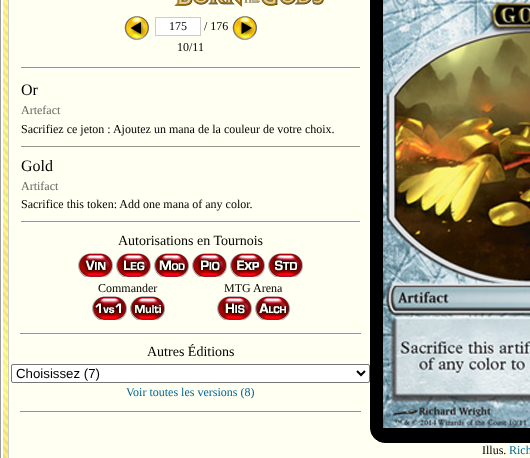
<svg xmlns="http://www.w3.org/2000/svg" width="530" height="458">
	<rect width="100%" height="100%" fill="#FFFFFF" />
	<rect x="0.5" y="-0.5" width="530" height="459" fill="none" stroke="#999999" />
	<image x="3" y="0" width="5" height="458" href="assets/img1.png" />
	<rect x="8.5" y="-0.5" width="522" height="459" fill="#FFFFF2" stroke="#CCCCCC" />
	<image x="174" y="0" width="150" height="7" href="assets/img2.png" />
	<image x="124" y="15" width="25" height="25" href="assets/img3.png" />
	<rect x="155.5" y="17.5" width="45" height="18" fill="#FFFFFF" stroke="#CCCCCC" />
	<g font-family="Liberation Serif" font-size="12" fill="#000000">
		<text x="169" y="30">175</text>
		<text x="204" y="30">/ 176</text>
	</g>
	<image x="232" y="15" width="25" height="25" href="assets/img4.png" />
	<text x="177" y="51" font-family="Liberation Serif" font-size="12" fill="#000000">10/11</text>
	<image x="21" y="67" width="339" height="2" href="assets/img5.png" />
	<text x="21" y="95" font-family="Liberation Serif" font-size="16" fill="#000000">Or</text>
	<text x="21" y="114" font-family="Liberation Serif" font-size="12" fill="#666666">Artefact</text>
	<text x="21" y="133" font-family="Liberation Serif" font-size="12" fill="#000000">Sacrifiez ce jeton : Ajoutez un mana de la couleur de votre choix.</text>
	<image x="21" y="146" width="339" height="2" href="assets/img5.png" />
	<text x="21" y="171" font-family="Liberation Serif" font-size="16" fill="#000000">Gold</text>
	<text x="21" y="190" font-family="Liberation Serif" font-size="12" fill="#666666">Artifact</text>
	<text x="21" y="208" font-family="Liberation Serif" font-size="12" fill="#000000">Sacrifice this token: Add one mana of any color.</text>
	<image x="21" y="221" width="339" height="2" href="assets/img5.png" />
	<text x="118" y="245" font-family="Liberation Serif" font-size="14" fill="#000000">Autorisations en Tournois</text>
	<image x="78" y="253" width="35" height="24" href="assets/img6.png" />
	<image x="116" y="253" width="35" height="24" href="assets/img7.png" />
	<image x="154" y="253" width="35" height="24" href="assets/img8.png" />
	<image x="192" y="253" width="35" height="24" href="assets/img9.png" />
	<image x="230" y="253" width="35" height="24" href="assets/img10.png" />
	<image x="268" y="253" width="35" height="24" href="assets/img11.png" />
	<text x="98" y="292" font-family="Liberation Serif" font-size="12" fill="#000000">Commander</text>
	<image x="92" y="296" width="35" height="24" href="assets/img12.png" />
	<image x="130" y="296" width="35" height="24" href="assets/img13.png" />
	<text x="224" y="292" font-family="Liberation Serif" font-size="12" fill="#000000">MTG Arena</text>
	<image x="217" y="296" width="35" height="24" href="assets/img14.png" />
	<image x="255" y="296" width="35" height="24" href="assets/img15.png" />
	<image x="20" y="333" width="341" height="2" href="assets/img16.png" />
	<text x="147" y="356" font-family="Liberation Serif" font-size="14" fill="#000000">Autres Éditions</text>
	<rect x="11.5" y="364.5" width="358" height="18" rx="1.5" fill="#FFFFFF" stroke="#767676" />
	<path d="M357 371L361 375L365 371" fill="none" stroke="#000000" stroke-width="2" />
	<text x="16" y="378" font-family="Liberation Sans" font-size="13.25" fill="#000000">Choisissez (7)</text>
	<text x="126" y="396" font-family="Liberation Serif" font-size="12" fill="#006699">Voir toutes les versions (8)</text>
	<image x="20" y="411" width="341" height="2" href="assets/img16.png" />
	<rect x="370.5" y="-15.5" width="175" height="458" rx="14.5" fill="#000000" stroke="#000000" />
	<image x="377" y="0" width="153" height="429" href="assets/img17.png" />
	<text x="482" y="454" font-family="Liberation Serif" font-size="12" fill="#000000">Illus.</text>
	<text x="509" y="454" font-family="Liberation Serif" font-size="12" fill="#006699">Rich</text>
</svg>
